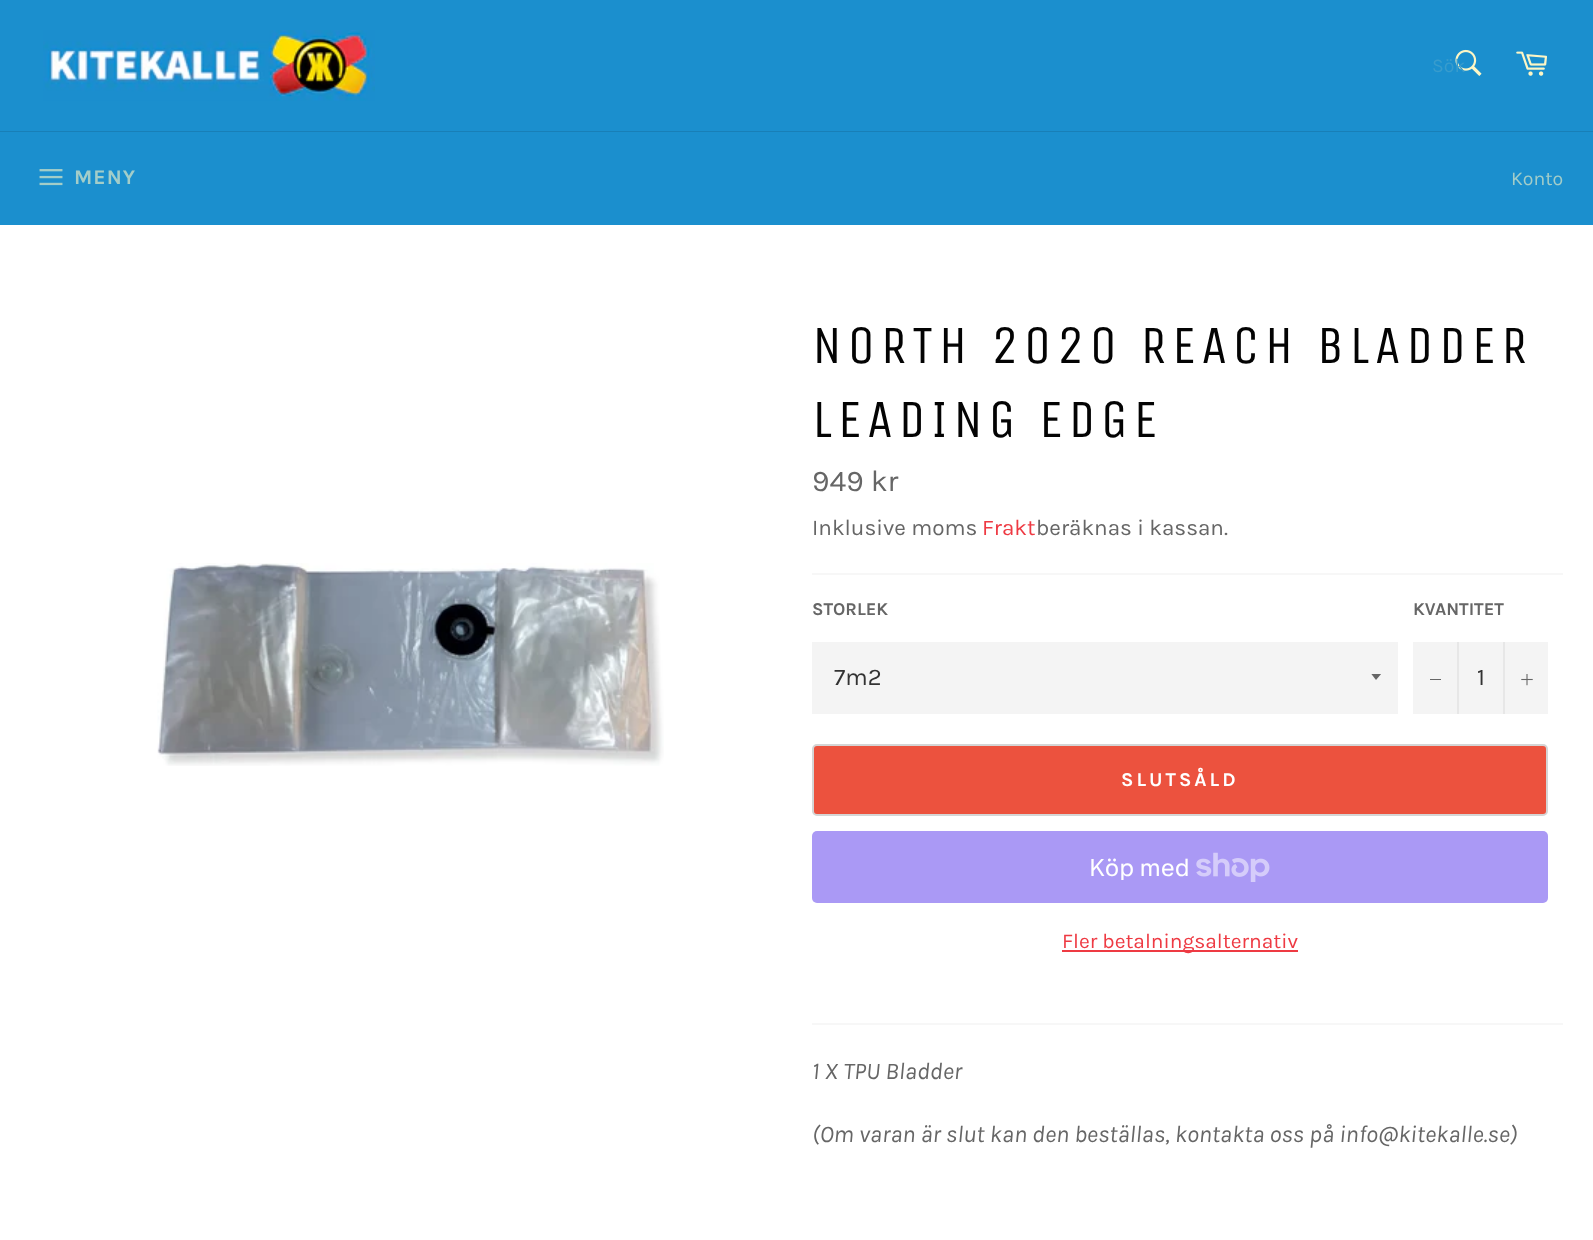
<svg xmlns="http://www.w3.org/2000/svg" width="1593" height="1240">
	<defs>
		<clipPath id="clip1"><rect x="1371" y="674" width="12" height="7" /></clipPath>
	</defs>
	<rect width="100%" height="100%" fill="#1B8FCE" />
	<image x="43" y="30" width="332" height="71" href="assets/img1.png" />
	<image x="1455" y="49" width="27" height="27" href="assets/img2.png" />
	<text x="1432" y="72" font-family="Karla" font-size="19.5" fill="#389CCD">Sök</text>
	<image x="1516" y="51" width="31" height="25" href="assets/img3.png" />
	<rect x="0" y="131" width="1593" height="1" fill="#187FB7" />
	<image x="39" y="169" width="24" height="17" href="assets/img4.png" />
	<text x="74" y="184" font-family="Karla" font-size="21" font-weight="700" letter-spacing="1" fill="#A3CDC9">MENY</text>
	<text x="1511" y="185" font-family="Karla" font-size="19.5" fill="#A3CDC9">Konto</text>
	<rect x="0" y="225" width="1593" height="1015" fill="#FFFFFF" />
	<image x="157" y="563" width="507" height="203" href="assets/img5.png" />
	<g font-family="Unica One" font-size="54" letter-spacing="5.4" fill="#030303">
		<text x="812" y="363">NORTH 2020 REACH BLADDER</text>
		<text x="812" y="437">LEADING EDGE</text>
	</g>
	<text x="812" y="491" font-family="Karla" font-size="30" fill="#666666">949 kr</text>
	<text x="812" y="535" font-family="Karla" font-size="22.5" fill="#666666">Inklusive moms</text>
	<text x="982" y="535" font-family="Karla" font-size="22.5" fill="#EE3A43">Frakt</text>
	<text x="1036" y="535" font-family="Karla" font-size="22.5" fill="#666666">beräknas i kassan.</text>
	<rect x="812" y="573" width="751" height="2" fill="#F7F7F7" />
	<text x="812" y="615" font-family="Karla" font-size="18" font-weight="700" fill="#666666">STORLEK</text>
	<rect x="812" y="642" width="586" height="72" fill="#F4F4F4" />
	<g clip-path="url(#clip1)">
		<path d="M1371 673.5L1376 680L1381.5 673.5Z" fill="#666666" />
	</g>
	<text x="834" y="685" font-family="Karla" font-size="24" fill="#333333">7m2</text>
	<text x="1413" y="615" font-family="Karla" font-size="18" font-weight="700" fill="#666666">KVANTITET</text>
	<rect x="1413" y="642" width="135" height="72" fill="#F4F4F4" />
	<rect x="1457" y="642" width="2" height="72" fill="#E7E7E7" />
	<rect x="1430" y="679" width="11" height="1" fill="#666666" />
	<text x="1477" y="685" font-family="Karla" font-size="24" fill="#333333">1</text>
	<rect x="1503" y="642" width="2" height="72" fill="#E7E7E7" />
	<image x="1521" y="674" width="12" height="12" href="assets/img6.png" />
	<rect x="813" y="745" width="734" height="70" rx="4" fill="#EC523E" stroke="#D5D5D5" stroke-width="2" />
	<text x="1121" y="786" font-family="Karla" font-size="19.5" font-weight="700" letter-spacing="3" fill="#FFFFFF">SLUTSÅLD</text>
	<rect x="812" y="831" width="736" height="72" rx="5" fill="#AA99F5" />
	<text x="1089" y="876" font-family="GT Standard" font-size="24" fill="#FFFFFF">Köp med</text>
	<image x="1196" y="852" width="74" height="30" href="assets/img7.png" />
	<rect x="1062" y="950" width="236" height="2" fill="#EE3A43" />
	<text x="1062" y="948" font-family="Karla" font-size="21" fill="#EE3A43">Fler betalningsalternativ</text>
	<rect x="812" y="1023" width="751" height="2" fill="#F7F7F7" />
	<g font-family="Karla" font-size="24" font-style="italic" fill="#666666">
		<text x="812" y="1079">1 X TPU Bladder</text>
		<text x="812" y="1142">(Om varan är slut kan den beställas, kontakta oss på info@kitekalle.se)</text>
	</g>
</svg>
